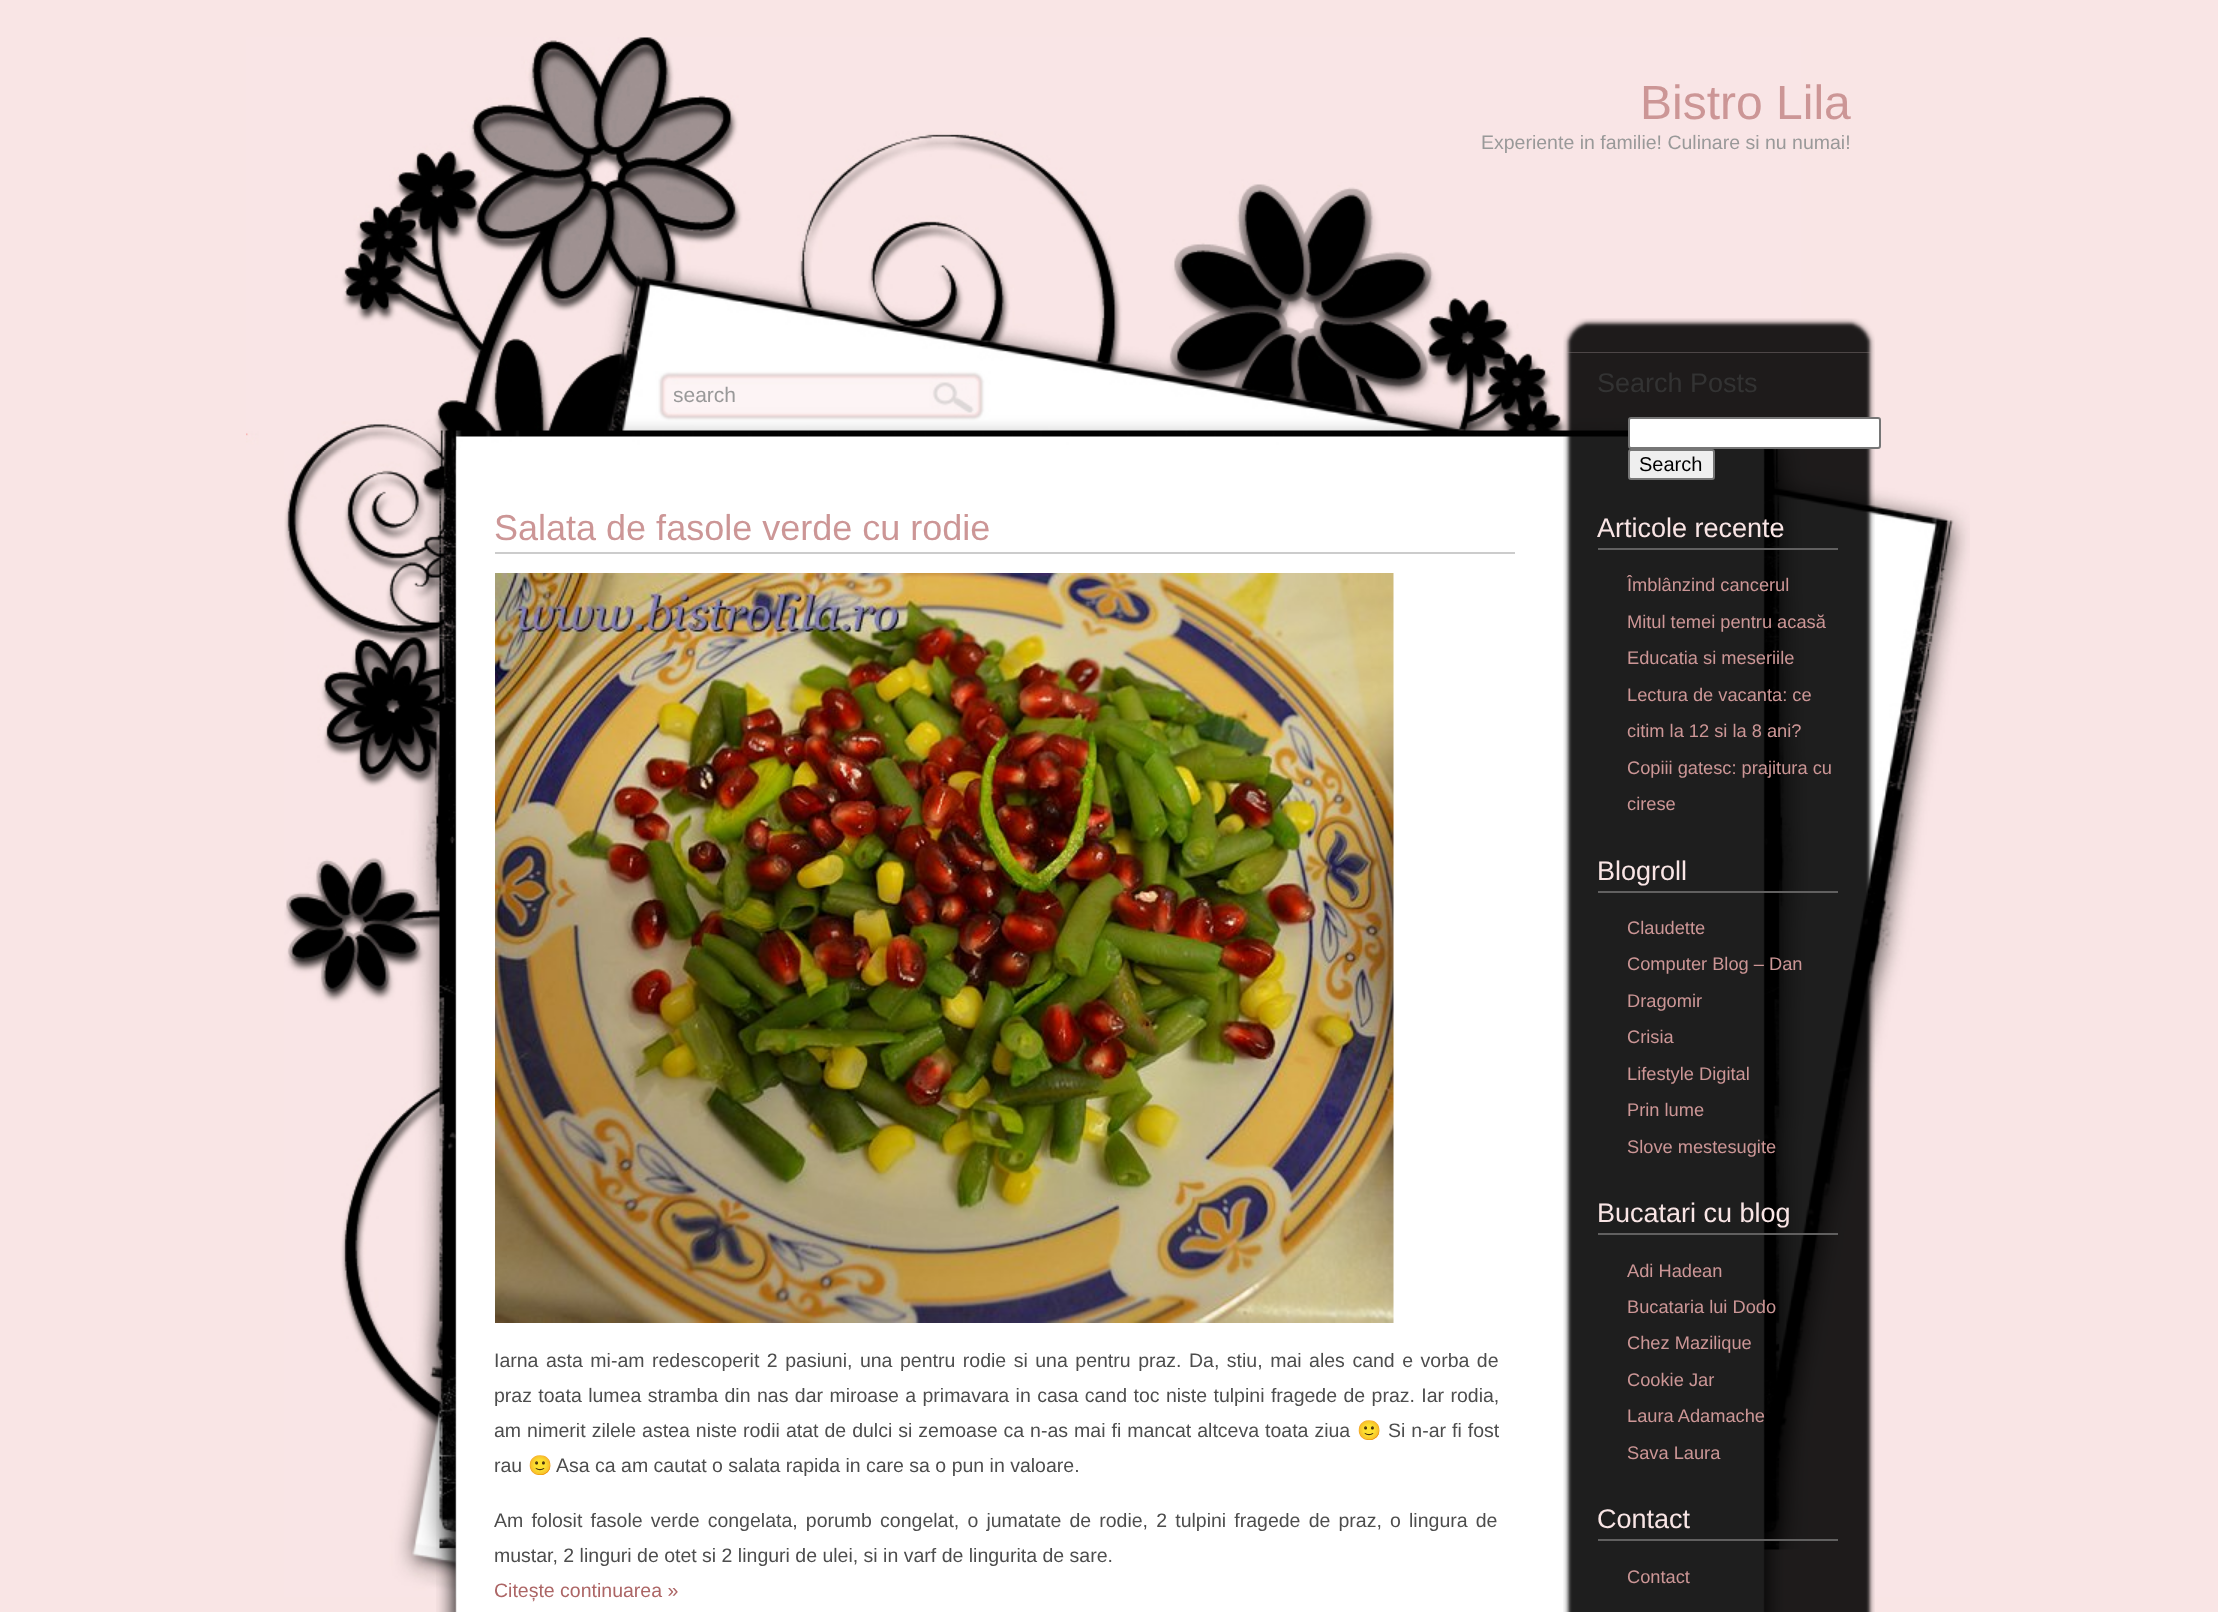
<svg xmlns="http://www.w3.org/2000/svg" width="2218" height="1612">
	<defs>
		<clipPath id="clip1"><rect x="674" y="383" width="225" height="24" /></clipPath>
	</defs>
	<rect width="100%" height="100%" fill="#F9E5E5" />
	<image x="246" y="37" width="1555" height="413" href="assets/img1.png" />
	<text x="1640" y="119" font-family="Liberation Sans" font-size="48" fill="#CC9696">Bistro Lila</text>
	<text x="1481" y="149" font-family="Liberation Sans" font-size="19.5" fill="#999999">Experiente in familie! Culinare si nu numai!</text>
	<g clip-path="url(#clip1)">
		<text x="673" y="402" font-family="Liberation Sans" font-size="21" fill="#999999">search</text>
	</g>
	<image x="284" y="450" width="1686" height="1148" href="assets/img2.png" />
	<image x="436" y="450" width="1348" height="1162" href="assets/img3.png" />
	<rect x="495" y="552" width="1020" height="2" fill="#CCCCCC" />
	<text x="494" y="540" font-family="Liberation Sans" font-size="36" fill="#CC9696">Salata de fasole verde cu rodie</text>
	<image x="495" y="573" width="899" height="750" href="assets/img4.png" />
	<g font-family="Liberation Sans" font-size="19.5" fill="#4D4D4D">
		<text x="494" y="1367" word-spacing="2.1">Iarna asta mi-am redescoperit 2 pasiuni, una pentru rodie si una pentru praz. Da, stiu, mai ales cand e vorba de</text>
		<text x="494" y="1402" word-spacing="1">praz toata lumea stramba din nas dar miroase a primavara in casa cand toc niste tulpini fragede de praz. Iar rodia,</text>
		<text x="494" y="1437" word-spacing="0.6">am nimerit zilele astea niste rodii atat de dulci si zemoase ca n-as mai fi mancat altceva toata ziua</text>
	</g>
	<text x="1357" y="1437" font-family="Noto Color Emoji" font-size="19.5" fill="#4D4D4D">🙂</text>
	<g font-family="Liberation Sans" font-size="19.5" fill="#4D4D4D">
		<text x="1388" y="1437" word-spacing="0.6">Si n-ar fi fost</text>
		<text x="494" y="1472">rau</text>
	</g>
	<text x="528" y="1472" font-family="Noto Color Emoji" font-size="19.5" fill="#4D4D4D">🙂</text>
	<g font-family="Liberation Sans" font-size="19.5" fill="#4D4D4D">
		<text x="556" y="1472">Asa ca am cautat o salata rapida in care sa o pun in valoare.</text>
		<text x="494" y="1527" word-spacing="2.75">Am folosit fasole verde congelata, porumb congelat, o jumatate de rodie, 2 tulpini fragede de praz, o lingura de</text>
		<text x="494" y="1562">mustar, 2 linguri de otet si 2 linguri de ulei, si in varf de lingurita de sare.</text>
	</g>
	<text x="494" y="1597" font-family="Liberation Sans" font-size="19.5" fill="#AC6565">Citește continuarea »</text>
	<image x="1563" y="318" width="312" height="35" href="assets/img5.png" />
	<image x="1563" y="352" width="312" height="1260" href="assets/img6.png" />
	<text x="1597" y="392" font-family="Liberation Sans" font-size="27" fill="#333333">Search Posts</text>
	<rect x="1629" y="418" width="251" height="30" rx="2" fill="#FFFFFF" stroke="#767676" stroke-width="2" />
	<rect x="1629" y="450" width="85" height="29" rx="2" fill="#EFEFEF" stroke="#767676" stroke-width="2" />
	<text x="1639" y="471" font-family="Liberation Sans" font-size="20" fill="#000000">Search</text>
	<rect x="1598" y="548" width="240" height="2" fill="#616060" />
	<text x="1597" y="537" font-family="Liberation Sans" font-size="27" fill="#F9E5E5">Articole recente</text>
	<g font-family="Liberation Sans" font-size="18.25" fill="#CC9696">
		<text x="1627" y="591">Îmblânzind cancerul</text>
		<text x="1627" y="628">Mitul temei pentru acasă</text>
		<text x="1627" y="664">Educatia si meseriile</text>
		<text x="1627" y="701">Lectura de vacanta: ce</text>
		<text x="1627" y="737">citim la 12 si la 8 ani?</text>
		<text x="1627" y="774">Copiii gatesc: prajitura cu</text>
		<text x="1627" y="810">cirese</text>
	</g>
	<rect x="1598" y="891" width="240" height="2" fill="#616060" />
	<text x="1597" y="880" font-family="Liberation Sans" font-size="27" fill="#F9E5E5">Blogroll</text>
	<g font-family="Liberation Sans" font-size="18.25" fill="#CC9696">
		<text x="1627" y="934">Claudette</text>
		<text x="1627" y="970">Computer Blog – Dan</text>
		<text x="1627" y="1007">Dragomir</text>
		<text x="1627" y="1043">Crisia</text>
		<text x="1627" y="1080">Lifestyle Digital</text>
		<text x="1627" y="1116">Prin lume</text>
		<text x="1627" y="1153">Slove mestesugite</text>
	</g>
	<rect x="1598" y="1233" width="240" height="2" fill="#616060" />
	<text x="1597" y="1222" font-family="Liberation Sans" font-size="27" fill="#F9E5E5">Bucatari cu blog</text>
	<g font-family="Liberation Sans" font-size="18.25" fill="#CC9696">
		<text x="1627" y="1277">Adi Hadean</text>
		<text x="1627" y="1313">Bucataria lui Dodo</text>
		<text x="1627" y="1349">Chez Mazilique</text>
		<text x="1627" y="1386">Cookie Jar</text>
		<text x="1627" y="1422">Laura Adamache</text>
		<text x="1627" y="1459">Sava Laura</text>
	</g>
	<rect x="1598" y="1539" width="240" height="2" fill="#616060" />
	<text x="1597" y="1528" font-family="Liberation Sans" font-size="27" fill="#F9E5E5">Contact</text>
	<text x="1627" y="1583" font-family="Liberation Sans" font-size="18.25" fill="#CC9696">Contact</text>
</svg>
